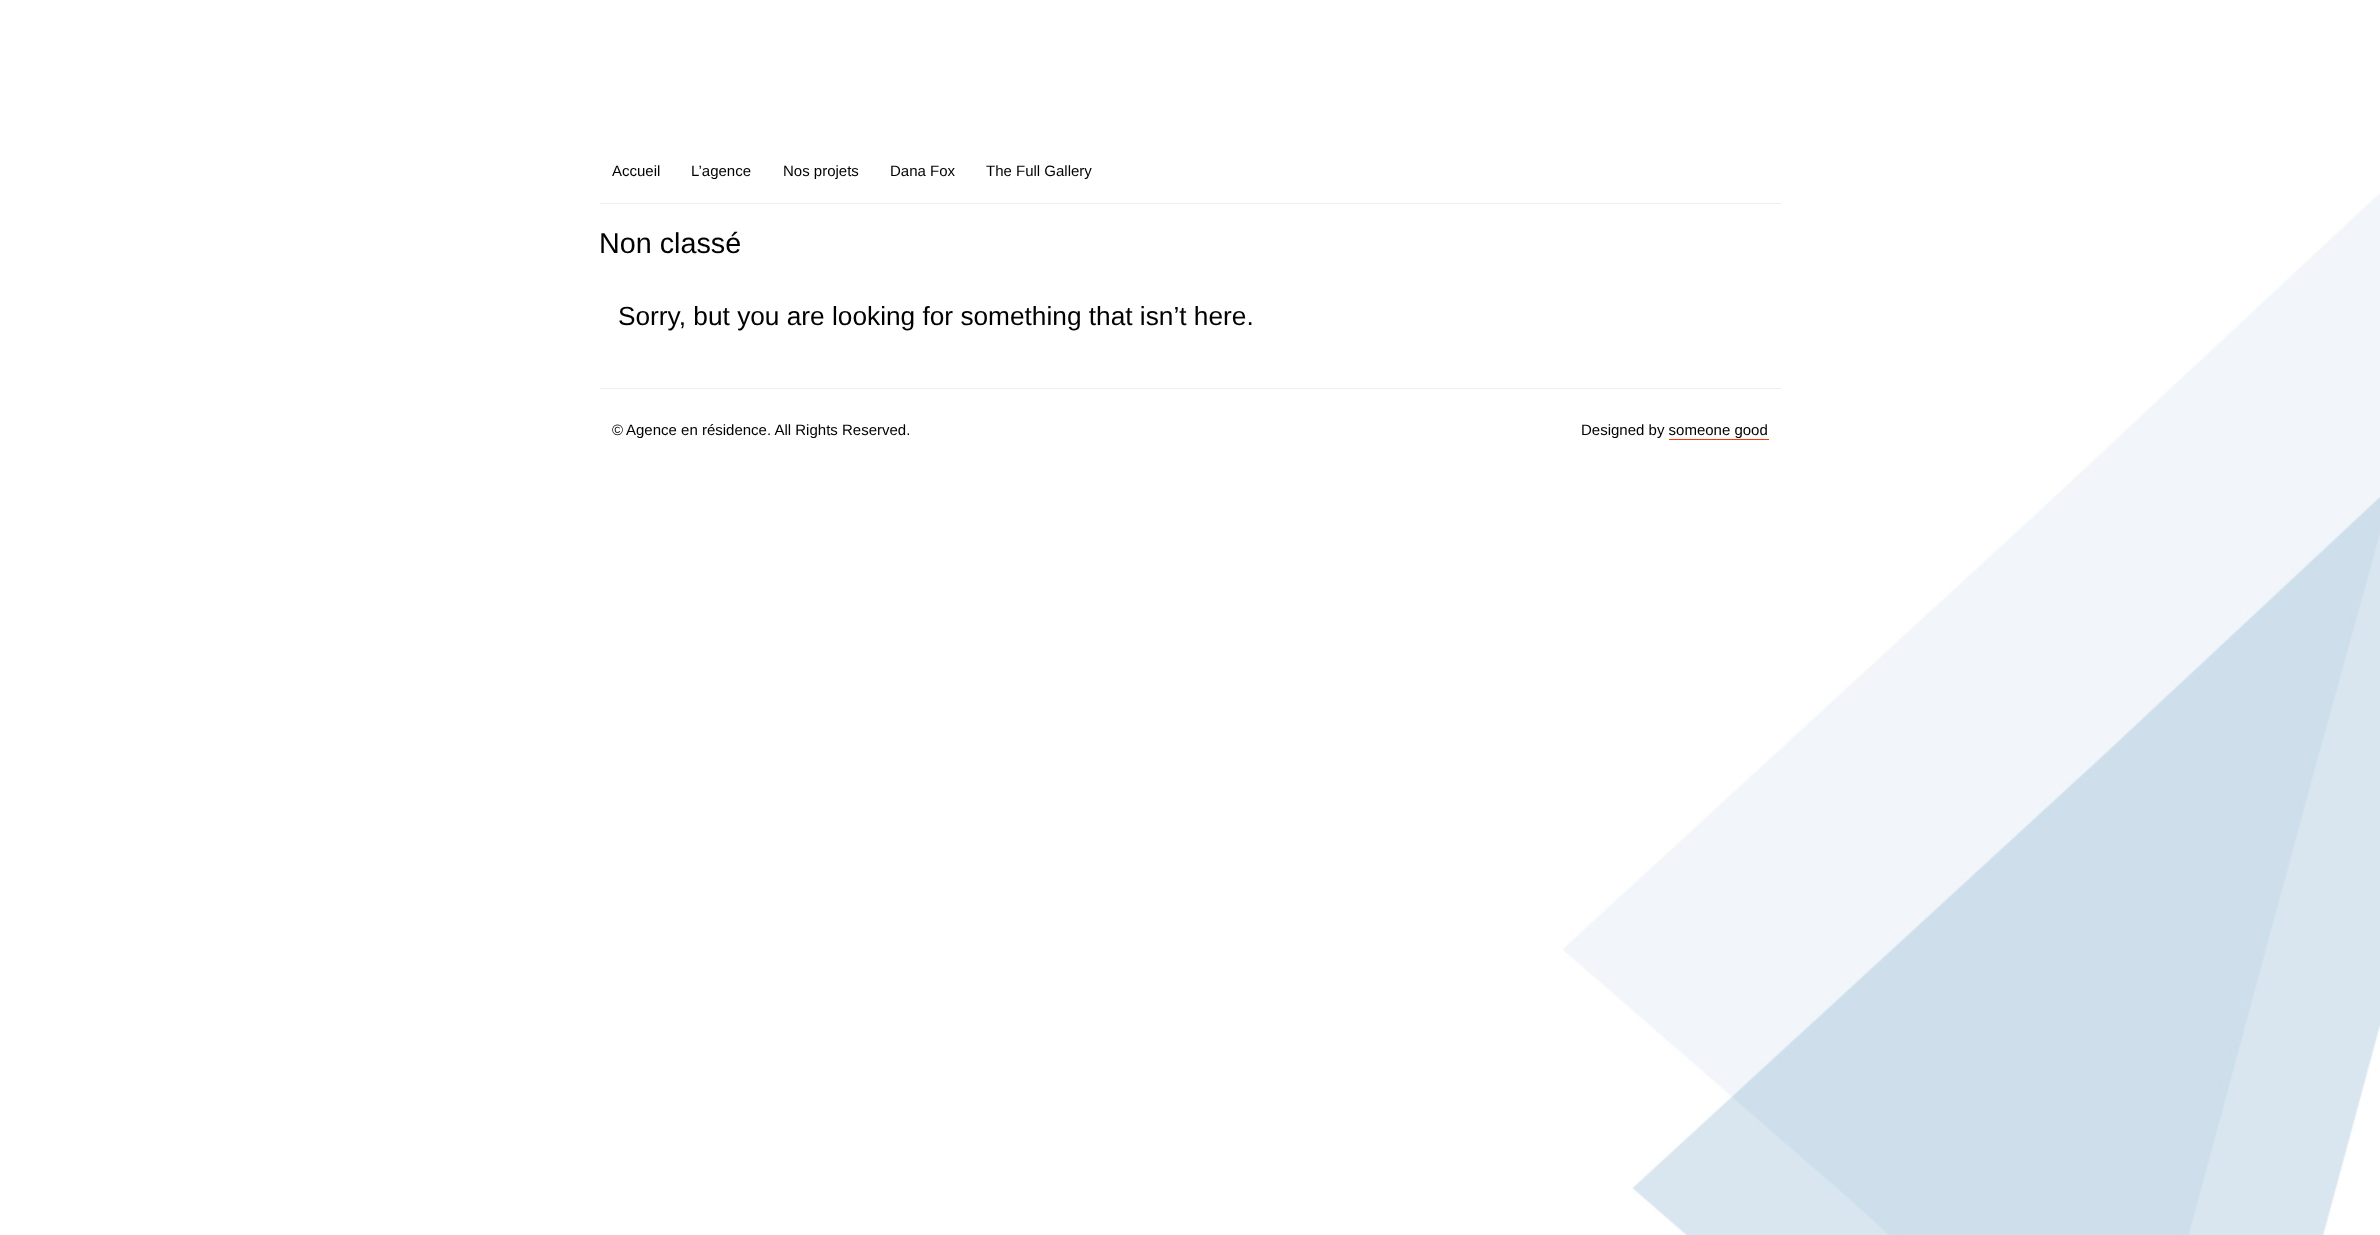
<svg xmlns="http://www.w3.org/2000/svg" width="2380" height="1235">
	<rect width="100%" height="100%" fill="#FFFFFF" />
	<image x="1563" y="193" width="817" height="1042" href="assets/img1.png" />
	<rect x="600" y="203" width="1181" height="1" fill="#EEEEEE" />
	<g font-family="Liberation Sans" font-size="15" fill="#000000">
		<text x="612" y="176">Accueil</text>
		<text x="691" y="176">L’agence</text>
		<text x="783" y="176">Nos projets</text>
		<text x="890" y="176">Dana Fox</text>
		<text x="986" y="176">The Full Gallery</text>
	</g>
	<text x="599" y="253" font-family="Liberation Sans" font-size="28.75" fill="#000000">Non classé</text>
	<text x="618" y="325" font-family="Liberation Sans" font-size="26.25" fill="#000000">Sorry, but you are looking for something that isn’t here.</text>
	<rect x="600" y="388" width="1181" height="1" fill="#EEEEEE" />
	<g font-family="Liberation Sans" font-size="15" fill="#000000">
		<text x="612" y="435">©</text>
		<text x="626" y="435">Agence en résidence. All Rights Reserved.</text>
		<text x="1581" y="435">Designed by someone good</text>
	</g>
	<rect x="1669" y="439" width="100" height="1" fill="#FF3706" />
</svg>
